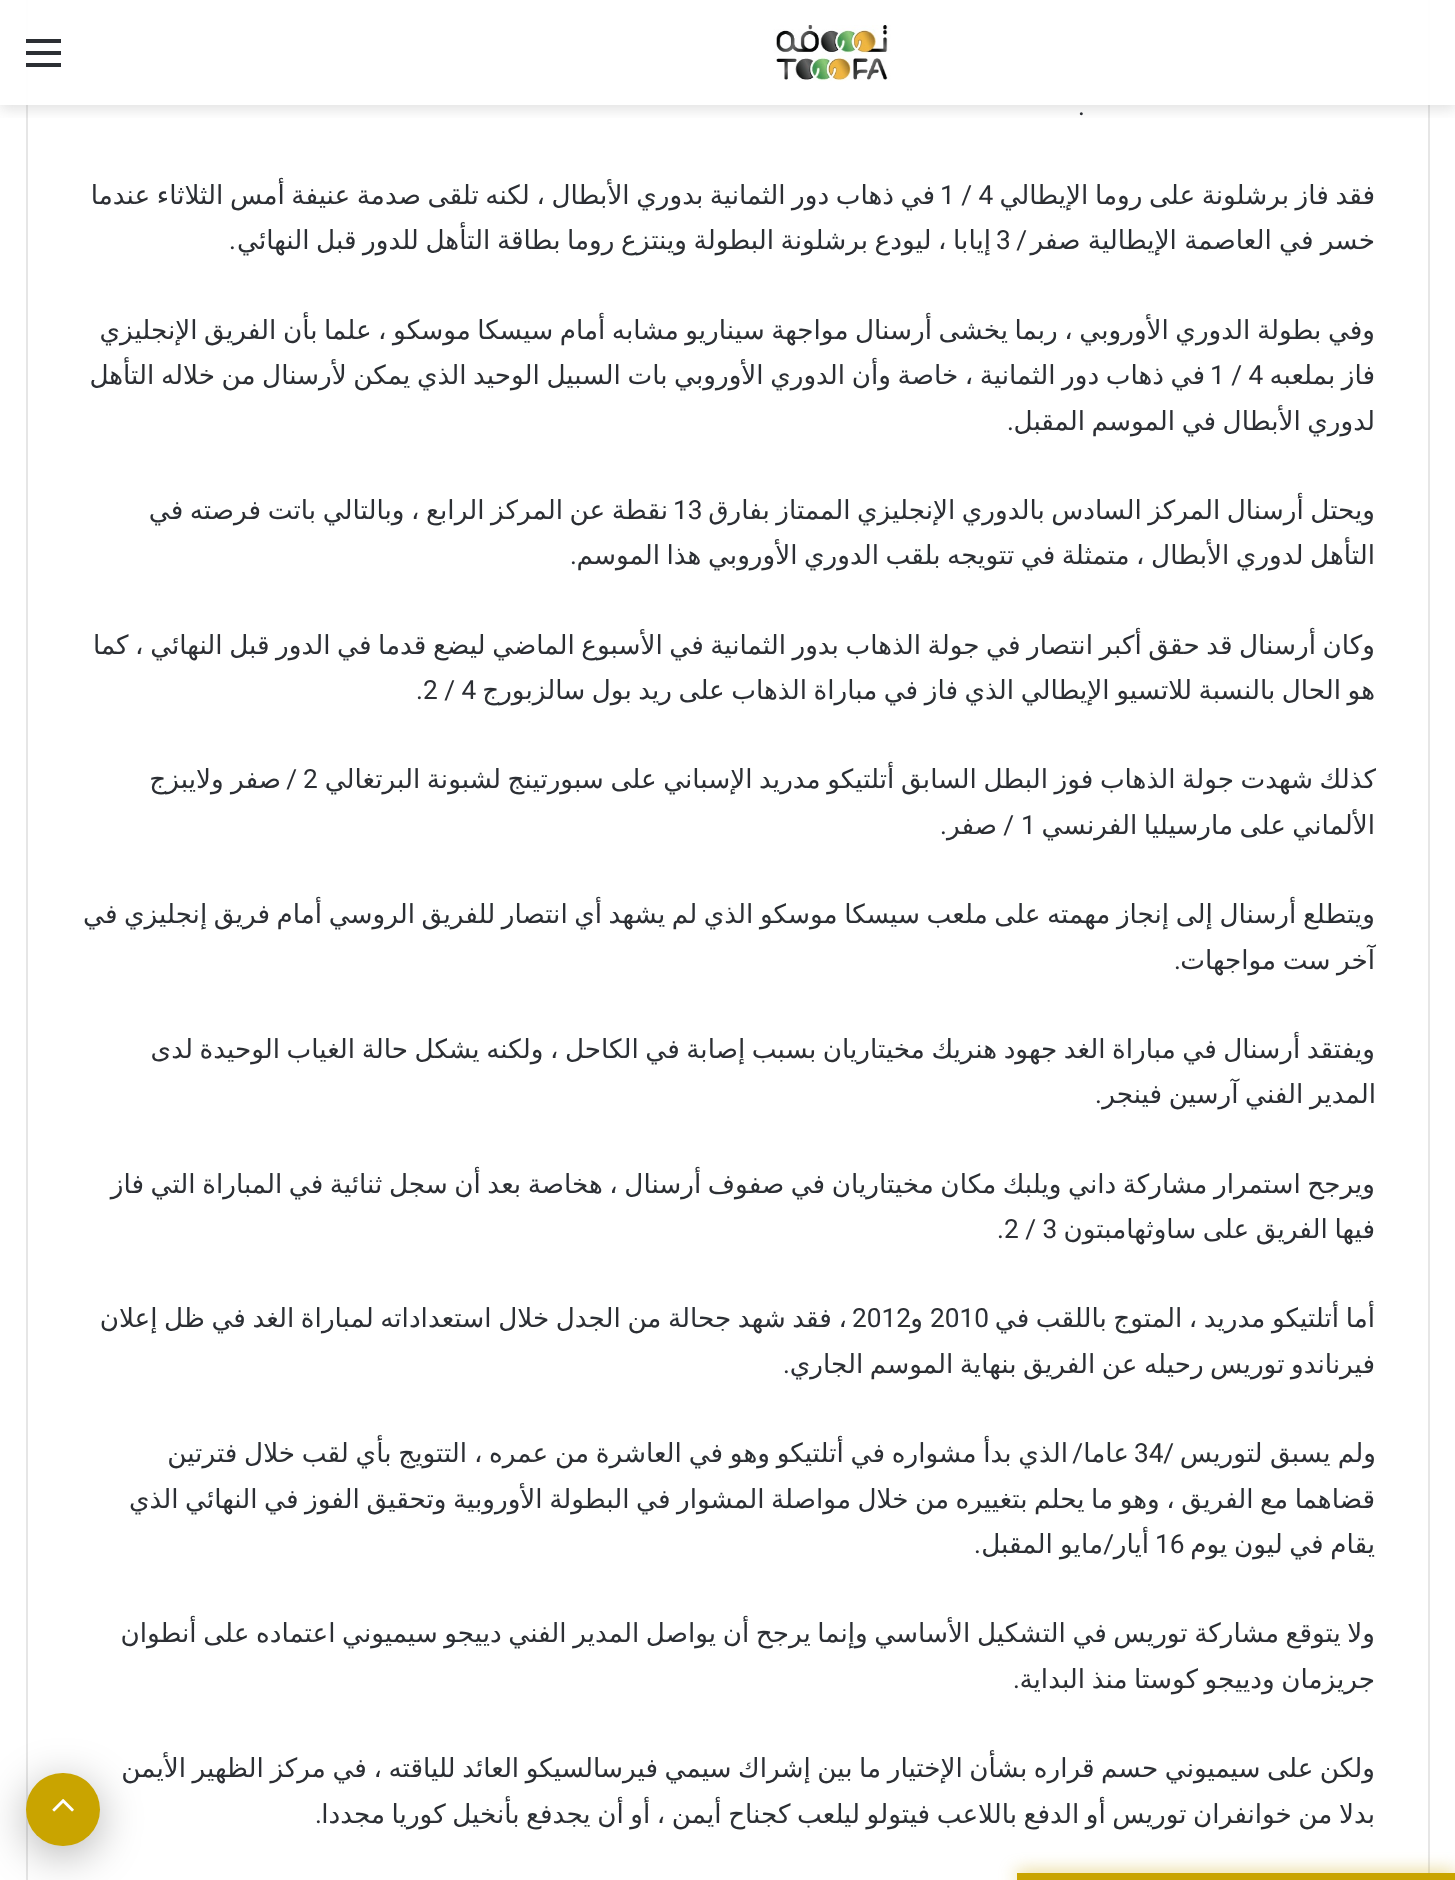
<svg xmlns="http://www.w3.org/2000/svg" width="1455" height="1880">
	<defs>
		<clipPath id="clip1"><rect x="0" y="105" width="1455" height="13" /></clipPath>
	</defs>
	<rect width="100%" height="100%" fill="#FFFFFF" />
	<rect x="27" y="-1" width="1402" height="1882" fill="none" stroke="#E6E6E6" stroke-width="2" />
	<g clip-path="url(#clip1)">
		<rect x="0" y="4" width="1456" height="105" fill="#636363" fill-opacity="0.2" filter="blur(7px)" />
	</g>
	<rect x="26" y="0" width="1404" height="105" fill="#FFFFFF" fill-opacity="0.95" />
	<image x="562" y="25" width="332" height="56" href="assets/img1.png" />
	<rect x="26" y="51" width="35" height="4" fill="#2C2F34" />
	<rect x="26" y="39" width="35" height="4" fill="#2C2F34" />
	<rect x="26" y="63" width="35" height="4" fill="#2C2F34" />
	<text x="1085" y="115" font-family="Roboto" font-size="26.25" direction="rtl" fill="#2C2F34">.</text>
	<g font-family="DejaVu Sans" font-size="26.25" direction="rtl" fill="#2C2F34">
		<text x="1375" y="204" word-spacing="-1.8">فقد فاز برشلونة على روما الإيطالي</text>
		<text x="935" y="204" word-spacing="-1.75">في ذهاب دور الثمانية بدوري الأبطال ، لكنه تلقى صدمة عنيفة أمس الثلاثاء عندما</text>
	</g>
	<text x="940" y="204" font-family="Roboto" font-size="26.25" fill="#2C2F34">1 / 4</text>
	<text x="1375" y="249" word-spacing="-1" font-family="DejaVu Sans" font-size="26.25" direction="rtl" fill="#2C2F34">خسر في العاصمة الإيطالية صفر</text>
	<text x="1027" y="249" font-family="Roboto" font-size="26.25" direction="rtl" fill="#2C2F34">/</text>
	<text x="991" y="249" word-spacing="-1.75" font-family="DejaVu Sans" font-size="26.25" direction="rtl" fill="#2C2F34">إيابا ، ليودع برشلونة البطولة وينتزع روما بطاقة التأهل للدور قبل النهائي</text>
	<text x="996" y="249" font-family="Roboto" font-size="26.25" fill="#2C2F34">3</text>
	<text x="236" y="249" font-family="Roboto" font-size="26.25" direction="rtl" fill="#2C2F34">.</text>
	<g font-family="DejaVu Sans" font-size="26.25" direction="rtl" fill="#2C2F34">
		<text x="1375" y="339" word-spacing="-1.8">وفي بطولة الدوري الأوروبي ، ربما يخشى أرسنال مواجهة سيناريو مشابه أمام سيسكا موسكو ، علما بأن الفريق الإنجليزي</text>
		<text x="1375" y="384" word-spacing="-1.8">فاز بملعبه</text>
		<text x="1205" y="384" word-spacing="-1.75">في ذهاب دور الثمانية ، خاصة وأن الدوري الأوروبي بات السبيل الوحيد الذي يمكن لأرسنال من خلاله التأهل</text>
	</g>
	<text x="1210" y="384" font-family="Roboto" font-size="26.25" fill="#2C2F34">1 / 4</text>
	<text x="1375" y="430" word-spacing="-1.8" font-family="DejaVu Sans" font-size="26.25" direction="rtl" fill="#2C2F34">لدوري الأبطال في الموسم المقبل</text>
	<text x="1014" y="430" font-family="Roboto" font-size="26.25" direction="rtl" fill="#2C2F34">.</text>
	<g font-family="DejaVu Sans" font-size="26.25" direction="rtl" fill="#2C2F34">
		<text x="1375" y="519" word-spacing="-1.8">ويحتل أرسنال المركز السادس بالدوري الإنجليزي الممتاز بفارق</text>
		<text x="668" y="519" word-spacing="-1.75">نقطة عن المركز الرابع ، وبالتالي باتت فرصته في</text>
	</g>
	<text x="673" y="519" font-family="Roboto" font-size="26.25" fill="#2C2F34">13</text>
	<text x="1375" y="564" word-spacing="-1.8" font-family="DejaVu Sans" font-size="26.25" direction="rtl" fill="#2C2F34">التأهل لدوري الأبطال ، متمثلة في تتويجه بلقب الدوري الأوروبي هذا الموسم</text>
	<text x="577" y="564" font-family="Roboto" font-size="26.25" direction="rtl" fill="#2C2F34">.</text>
	<g font-family="DejaVu Sans" font-size="26.25" direction="rtl" fill="#2C2F34">
		<text x="1375" y="654" word-spacing="-1.8">وكان أرسنال قد حقق أكبر انتصار في جولة الذهاب بدور الثمانية في الأسبوع الماضي ليضع قدما في الدور قبل النهائي ، كما</text>
		<text x="1375" y="699" word-spacing="-1.8">هو الحال بالنسبة للاتسيو الإيطالي الذي فاز في مباراة الذهاب على ريد بول سالزبورج</text>
	</g>
	<text x="416" y="699" font-family="Roboto" font-size="26.25" fill="#2C2F34">.2 / 4</text>
	<text x="1376" y="788" word-spacing="-1.8" font-family="DejaVu Sans" font-size="26.25" direction="rtl" fill="#2C2F34">كذلك شهدت جولة الذهاب فوز البطل السابق أتلتيكو مدريد الإسباني على سبورتينج لشبونة البرتغالي</text>
	<text x="303" y="788" font-family="Roboto" font-size="26.25" fill="#2C2F34">2</text>
	<text x="297" y="788" font-family="Roboto" font-size="26.25" direction="rtl" fill="#2C2F34">/</text>
	<g font-family="DejaVu Sans" font-size="26.25" direction="rtl" fill="#2C2F34">
		<text x="281" y="788" word-spacing="-1">صفر ولايبزج</text>
		<text x="1375" y="834" word-spacing="-1.8">الألماني على مارسيليا الفرنسي</text>
	</g>
	<text x="1021" y="834" font-family="Roboto" font-size="26.25" fill="#2C2F34">1</text>
	<text x="1014" y="834" font-family="Roboto" font-size="26.25" direction="rtl" fill="#2C2F34">/</text>
	<text x="997" y="834" font-family="DejaVu Sans" font-size="26.25" direction="rtl" fill="#2C2F34">صفر</text>
	<text x="947" y="834" font-family="Roboto" font-size="26.25" direction="rtl" fill="#2C2F34">.</text>
	<g font-family="DejaVu Sans" font-size="26.25" direction="rtl" fill="#2C2F34">
		<text x="1375" y="923" word-spacing="-1.8">ويتطلع أرسنال إلى إنجاز مهمته على ملعب سيسكا موسكو الذي لم يشهد أي انتصار للفريق الروسي أمام فريق إنجليزي في</text>
		<text x="1375" y="969" word-spacing="-1.8">آخر ست مواجهات</text>
	</g>
	<text x="1181" y="969" font-family="Roboto" font-size="26.25" direction="rtl" fill="#2C2F34">.</text>
	<g font-family="DejaVu Sans" font-size="26.25" direction="rtl" fill="#2C2F34">
		<text x="1375" y="1058" word-spacing="-1.8">ويفتقد أرسنال في مباراة الغد جهود هنريك مخيتاريان بسبب إصابة في الكاحل ، ولكنه يشكل حالة الغياب الوحيدة لدى</text>
		<text x="1376" y="1103" word-spacing="-1.8">المدير الفني آرسين فينجر</text>
	</g>
	<text x="1102" y="1103" font-family="Roboto" font-size="26.25" direction="rtl" fill="#2C2F34">.</text>
	<g font-family="DejaVu Sans" font-size="26.25" direction="rtl" fill="#2C2F34">
		<text x="1375" y="1193" word-spacing="-1.8">ويرجح استمرار مشاركة داني ويلبك مكان مخيتاريان في صفوف أرسنال ، هخاصة بعد أن سجل ثنائية في المباراة التي فاز</text>
		<text x="1375" y="1238" word-spacing="-1.8">فيها الفريق على ساوثهامبتون</text>
	</g>
	<text x="997" y="1238" font-family="Roboto" font-size="26.25" fill="#2C2F34">.2 / 3</text>
	<text x="1375" y="1327" word-spacing="-1.8" font-family="DejaVu Sans" font-size="26.25" direction="rtl" fill="#2C2F34">أما أتلتيكو مدريد ، المتوج باللقب في</text>
	<g font-family="Roboto" font-size="26.25" fill="#2C2F34">
		<text x="930" y="1327">2010</text>
		<text x="852" y="1327">2012</text>
	</g>
	<g font-family="DejaVu Sans" font-size="26.25" direction="rtl" fill="#2C2F34">
		<text x="923" y="1327">و</text>
		<text x="847" y="1327" word-spacing="-1.75">، فقد شهد جحالة من الجدل خلال استعداداته لمباراة الغد في ظل إعلان</text>
		<text x="1375" y="1373" word-spacing="-1.8">فيرناندو توريس رحيله عن الفريق بنهاية الموسم الجاري</text>
	</g>
	<text x="790" y="1373" font-family="Roboto" font-size="26.25" direction="rtl" fill="#2C2F34">.</text>
	<g font-family="DejaVu Sans" font-size="26.25" direction="rtl" fill="#2C2F34">
		<text x="1376" y="1462" word-spacing="-1">ولم يسبق لتوريس</text>
		<text x="1129" y="1462">عاما</text>
		<text x="1068" y="1462" word-spacing="-1.6">الذي بدأ مشواره في أتلتيكو وهو في العاشرة من عمره ، التتويج بأي لقب خلال فترتين</text>
	</g>
	<text x="1174" y="1462" font-family="Roboto" font-size="26.25" direction="rtl" fill="#2C2F34">/</text>
	<text x="1134" y="1462" font-family="Roboto" font-size="26.25" fill="#2C2F34">34</text>
	<text x="1083" y="1462" font-family="Roboto" font-size="26.25" direction="rtl" fill="#2C2F34">/</text>
	<g font-family="DejaVu Sans" font-size="26.25" direction="rtl" fill="#2C2F34">
		<text x="1375" y="1508" word-spacing="-1.8">قضاهما مع الفريق ، وهو ما يحلم بتغييره من خلال مواصلة المشوار في البطولة الأوروبية وتحقيق الفوز في النهائي الذي</text>
		<text x="1375" y="1553" word-spacing="-1.8">يقام في ليون يوم</text>
	</g>
	<text x="1155" y="1553" font-family="Roboto" font-size="26.25" fill="#2C2F34">16</text>
	<text x="1114" y="1553" font-family="Roboto" font-size="26.25" direction="rtl" fill="#2C2F34">/</text>
	<g font-family="DejaVu Sans" font-size="26.25" direction="rtl" fill="#2C2F34">
		<text x="1149" y="1553">أيار</text>
		<text x="1103" y="1553" word-spacing="-1">مايو المقبل</text>
	</g>
	<text x="981" y="1553" font-family="Roboto" font-size="26.25" direction="rtl" fill="#2C2F34">.</text>
	<g font-family="DejaVu Sans" font-size="26.25" direction="rtl" fill="#2C2F34">
		<text x="1375" y="1642" word-spacing="-1.8">ولا يتوقع مشاركة توريس في التشكيل الأساسي وإنما يرجح أن يواصل المدير الفني دييجو سيميوني اعتماده على أنطوان</text>
		<text x="1375" y="1688" word-spacing="-1.8">جريزمان ودييجو كوستا منذ البداية</text>
	</g>
	<text x="1020" y="1688" font-family="Roboto" font-size="26.25" direction="rtl" fill="#2C2F34">.</text>
	<g font-family="DejaVu Sans" font-size="26.25" direction="rtl" fill="#2C2F34">
		<text x="1375" y="1777" word-spacing="-1.8">ولكن على سيميوني حسم قراره بشأن الإختيار ما بين إشراك سيمي فيرسالسيكو العائد للياقته ، في مركز الظهير الأيمن</text>
		<text x="1375" y="1823" word-spacing="-1.8">بدلا من خوانفران توريس أو الدفع باللاعب فيتولو ليلعب كجناح أيمن ، أو أن يجدفع بأنخيل كوريا مجددا</text>
	</g>
	<text x="322" y="1823" font-family="Roboto" font-size="26.25" direction="rtl" fill="#2C2F34">.</text>
	<rect x="26" y="1782" width="74" height="73" rx="36.5" fill="#000000" fill-opacity="0.3" filter="blur(22px)" />
	<rect x="26" y="1773" width="74" height="73" rx="36.5" fill="#C9A400" />
	<image x="52" y="1799" width="22" height="13" href="assets/img2.png" />
	<rect x="1017" y="1873" width="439" height="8" fill="#C9A400" fill-opacity="0.7" filter="blur(9px)" />
	<rect x="1017" y="1873" width="438" height="7" fill="#C9A400" />
</svg>
